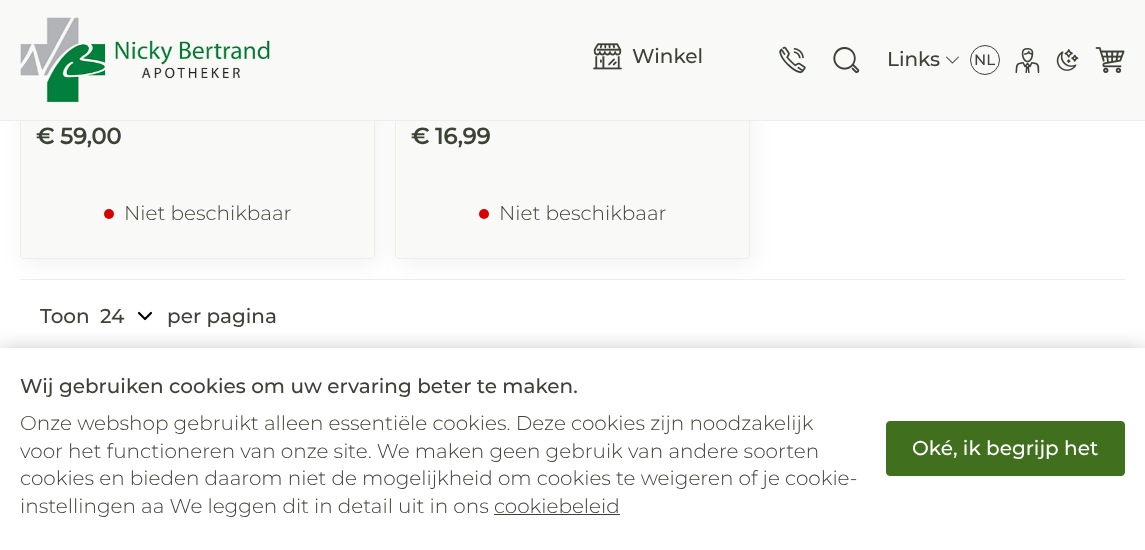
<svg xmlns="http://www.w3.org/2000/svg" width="1145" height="550">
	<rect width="100%" height="100%" fill="#FFFFFF" />
	<rect x="20" y="279" width="1105" height="1" fill="#ECEEE9" />
	<rect x="23" y="-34" width="355" height="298" rx="4" fill="#000000" fill-opacity="0.05" filter="blur(10px)" />
	<rect x="20.5" y="-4.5" width="354" height="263" rx="3.5" fill="none" stroke="#ECEEE9" />
	<path d="M21 39H374V255.5C374 257 373 258 371.5 258H23.5C22 258 21 257 21 255.5Z" fill="#F9FAF8" />
	<rect x="398" y="-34" width="355" height="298" rx="4" fill="#000000" fill-opacity="0.05" filter="blur(10px)" />
	<rect x="395.5" y="-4.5" width="354" height="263" rx="3.5" fill="none" stroke="#ECEEE9" />
	<path d="M396 39H749V255.5C749 257 748 258 746.5 258H398.5C397 258 396 257 396 255.5Z" fill="#F9FAF8" />
	<rect x="0" y="120" width="1145" height="1" fill="#ECEEE9" />
	<rect x="0" y="0" width="1145" height="120" fill="#F9FAF8" />
	<image x="20" y="17" width="250" height="86" href="assets/img1.png" />
	<image x="593" y="43" width="29" height="27" href="assets/img2.png" />
	<text x="632" y="63" font-family="Montserrat" font-size="20" font-weight="500" fill="#3D4136">Winkel</text>
	<image x="779" y="46" width="27" height="28" href="assets/img3.png" />
	<image x="833" y="46" width="27" height="28" href="assets/img4.png" />
	<text x="887" y="66" font-family="Montserrat" font-size="20" font-weight="500" fill="#3D4136">Links</text>
	<image x="946" y="56" width="13" height="8" href="assets/img5.png" />
	<circle cx="985" cy="60" r="14.5" fill="none" stroke="#3D4136" />
	<text x="974" y="65" font-family="Montserrat" font-size="15" font-weight="500" fill="#3D4136">NL</text>
	<image x="1015" y="48" width="25" height="25" href="assets/img6.png" />
	<image x="1056" y="49" width="23" height="22" href="assets/img7.png" />
	<image x="1095" y="47" width="30" height="26" href="assets/img8.png" />
	<text x="36" y="144" font-family="Montserrat" font-size="22.5" font-weight="700" fill="#3D4136">€ 59,00</text>
	<circle cx="109" cy="214" r="5" fill="#D90000" />
	<text x="124" y="220" font-family="Montserrat" font-size="20" font-weight="300" fill="#3D4136">Niet beschikbaar</text>
	<text x="411" y="144" font-family="Montserrat" font-size="22.5" font-weight="700" fill="#3D4136">€ 16,99</text>
	<circle cx="484" cy="214" r="5" fill="#D90000" />
	<text x="499" y="220" font-family="Montserrat" font-size="20" font-weight="300" fill="#3D4136">Niet beschikbaar</text>
	<text x="40" y="323" font-family="Montserrat" font-size="20" font-weight="500" fill="#3D4136">Toon</text>
	<path d="M139 313L145 319L151 313" fill="none" stroke="#000000" stroke-width="2.2" stroke-linecap="round" stroke-linejoin="round" />
	<g font-family="Montserrat" font-size="20" font-weight="500" fill="#3D4136">
		<text x="100" y="323">24</text>
		<text x="167" y="323">per pagina</text>
	</g>
	<rect x="0" y="348" width="1145" height="202" fill="#000000" fill-opacity="0.2" filter="blur(9.5px)" />
	<rect x="0" y="348" width="1145" height="202" fill="#FFFFFF" />
	<text x="20" y="393" font-family="Montserrat" font-size="20" font-weight="500" fill="#3D4136">Wij gebruiken cookies om uw ervaring beter te maken.</text>
	<g font-family="Montserrat" font-size="20" font-weight="300" fill="#3D4136">
		<text x="20" y="430">Onze webshop gebruikt alleen essentiële cookies. Deze cookies zijn noodzakelijk</text>
		<text x="20" y="458">voor het functioneren van onze site. We maken geen gebruik van andere soorten</text>
		<text x="20" y="485">cookies en bieden daarom niet de mogelijkheid om cookies te weigeren of je cookie-</text>
		<text x="20" y="513">instellingen aa We leggen dit in detail uit in ons cookiebeleid</text>
	</g>
	<rect x="494" y="514" width="126" height="1" fill="#3D4136" />
	<rect x="886.5" y="421.5" width="238" height="54" rx="3.5" fill="#406F1D" stroke="#406F1D" />
	<text x="912" y="455" font-family="Montserrat" font-size="20" font-weight="500" fill="#FFFFFF">Oké, ik begrijp het</text>
</svg>
